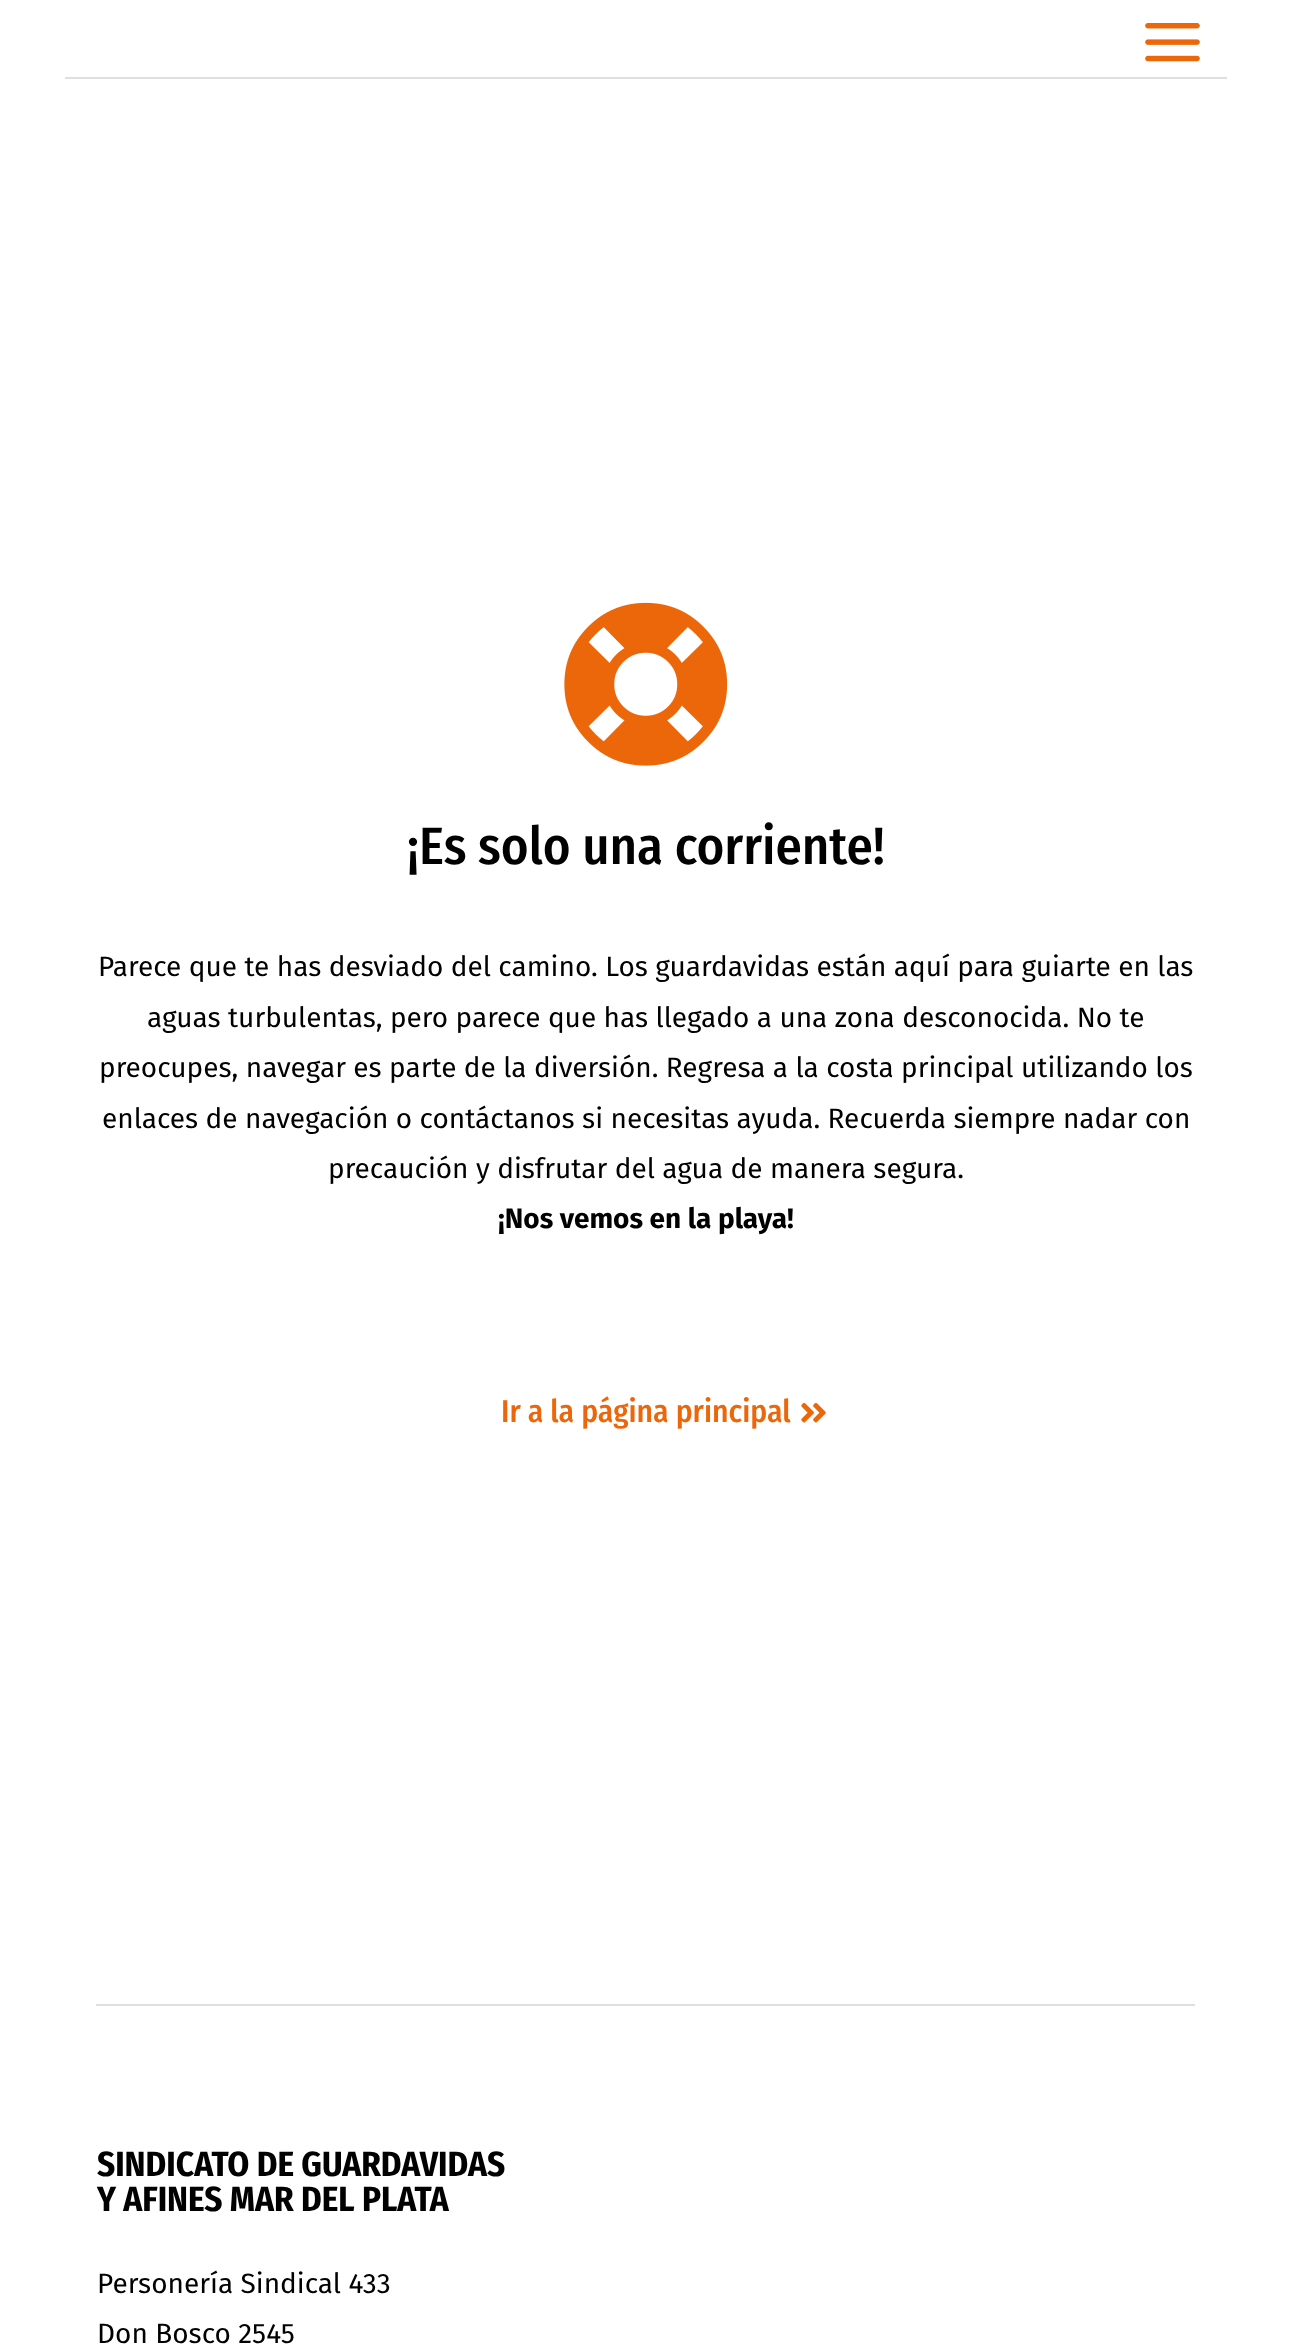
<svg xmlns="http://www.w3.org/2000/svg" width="1291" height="2352">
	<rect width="100%" height="100%" fill="#FFFFFF" />
	<rect x="65" y="77" width="1162" height="2" fill="#DFDFDF" />
	<image x="1145" y="23" width="55" height="39" href="assets/img1.png" />
	<image x="564" y="602" width="164" height="164" href="assets/img2.png" />
	<text x="407" y="864" font-family="Fira Sans Condensed" font-size="52.5" font-weight="500" fill="#000000">¡Es solo una corriente!</text>
	<g font-family="Fira Sans" font-size="28" fill="#000000">
		<text x="98" y="976">Parece que te has desviado del camino. Los guardavidas están aquí para guiarte en las</text>
		<text x="147" y="1027">aguas turbulentas, pero parece que has llegado a una zona desconocida. No te</text>
		<text x="99" y="1077">preocupes, navegar es parte de la diversión. Regresa a la costa principal utilizando los</text>
		<text x="102" y="1128">enlaces de navegación o contáctanos si necesitas ayuda. Recuerda siempre nadar con</text>
		<text x="328" y="1178">precaución y disfrutar del agua de manera segura.</text>
	</g>
	<text x="498" y="1228" font-family="Fira Sans" font-size="28" font-weight="700" fill="#000000">¡Nos vemos en la playa!</text>
	<text x="501" y="1422" font-family="Fira Sans Condensed" font-size="31.5" font-weight="500" fill="#EC660A">Ir a la página principal</text>
	<image x="801" y="1402" width="25" height="21" href="assets/img3.png" />
	<rect x="96" y="2004" width="1099" height="2" fill="#DFDFDF" />
	<g font-family="Fira Sans Condensed" font-size="35" font-weight="700" fill="#000000">
		<text x="97" y="2176">SINDICATO DE GUARDAVIDAS</text>
		<text x="97" y="2211">Y AFINES MAR DEL PLATA</text>
	</g>
	<g font-family="Fira Sans" font-size="28" fill="#000000">
		<text x="97" y="2293">Personería Sindical 433</text>
		<text x="97" y="2343">Don Bosco 2545</text>
	</g>
</svg>
